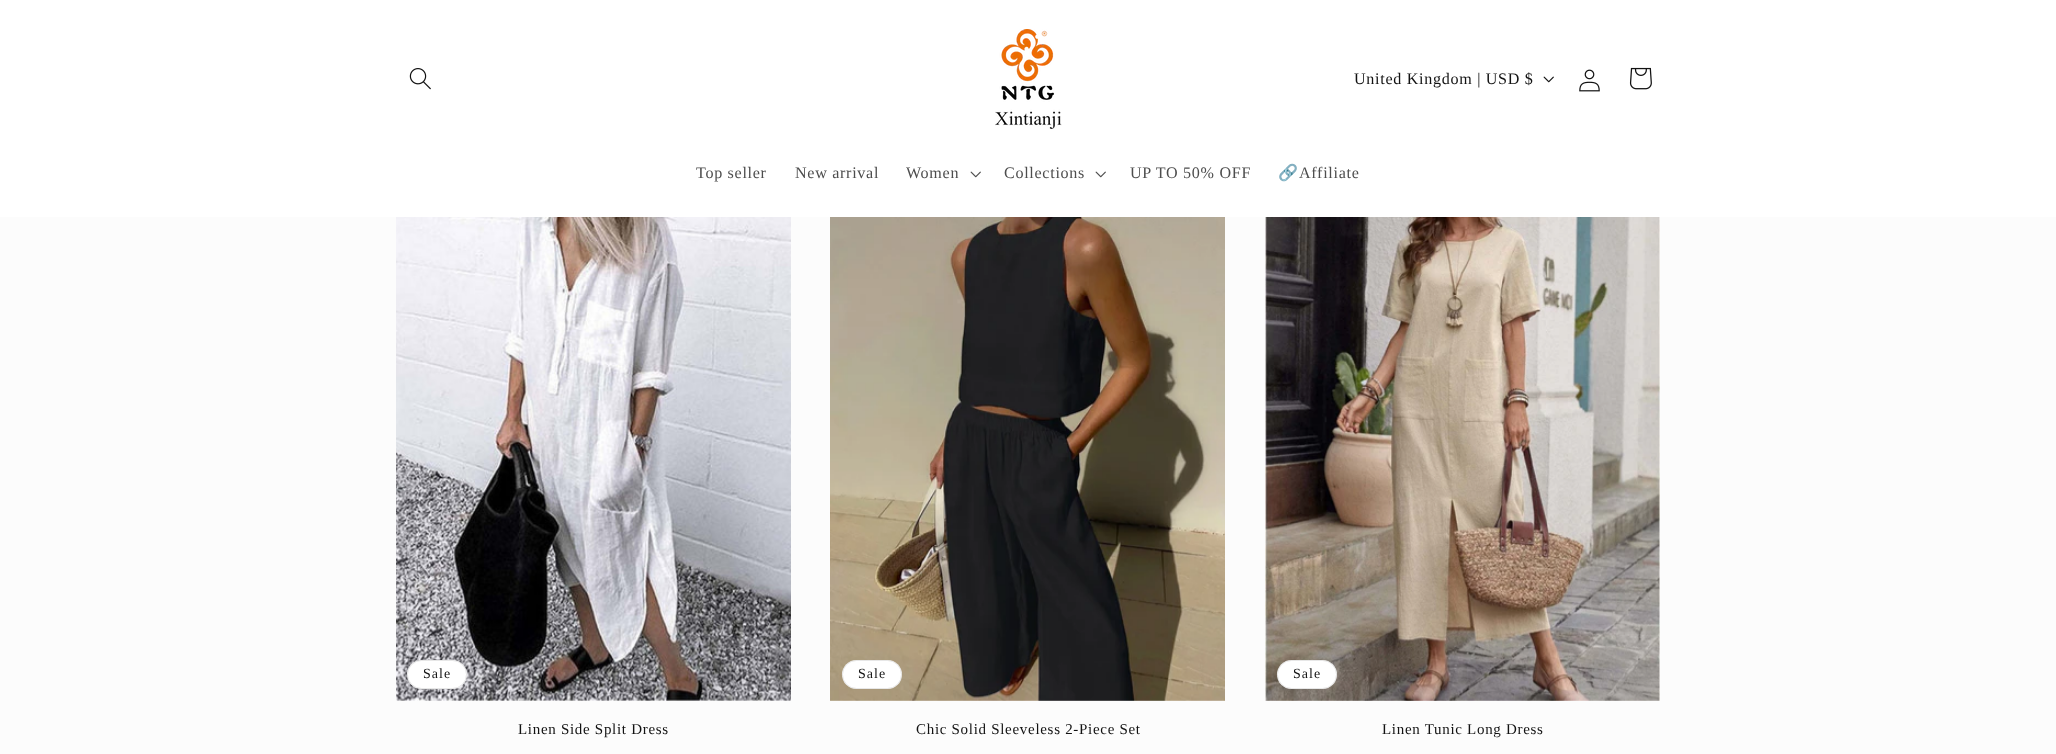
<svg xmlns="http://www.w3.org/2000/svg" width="2056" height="754">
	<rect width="100%" height="100%" fill="#FCFCFC" />
	<rect x="0" y="0" width="2056" height="217" fill="#FFFFFF" />
	<image x="409" y="68" width="22" height="22" href="assets/img1.png" />
	<image x="995" y="29" width="67" height="100" href="assets/img2.png" />
	<text x="1354" y="84" font-family="Liberation Serif" font-size="16.1" letter-spacing="0.7" fill="#121212">United Kingdom | USD $</text>
	<image x="1543" y="76" width="11" height="7" href="assets/img3.png" />
	<image x="1579" y="69" width="21" height="23" href="assets/img4.png" />
	<image x="1629" y="67" width="23" height="23" href="assets/img5.png" />
	<g font-family="Liberation Serif" font-size="16.1" letter-spacing="0.7" fill="#4D4D4D">
		<text x="696" y="178">Top seller</text>
		<text x="795" y="178">New arrival</text>
		<text x="906" y="178">Women</text>
	</g>
	<image x="970" y="171" width="11" height="7" href="assets/img6.png" />
	<text x="1004" y="178" font-family="Liberation Serif" font-size="16.1" letter-spacing="0.7" fill="#4D4D4D">Collections</text>
	<image x="1095" y="171" width="11" height="7" href="assets/img6.png" />
	<text x="1130" y="178" font-family="Liberation Serif" font-size="16.1" letter-spacing="0.7" fill="#4D4D4D">UP TO 50% OFF</text>
	<text x="1278" y="178" font-family="Noto Color Emoji" font-size="16.1" letter-spacing="0.7" fill="#4D4D4D">🔗</text>
	<text x="1299" y="178" font-family="Liberation Serif" font-size="16.1" letter-spacing="0.7" fill="#4D4D4D">Affiliate</text>
	<image x="396" y="217" width="395" height="484" href="assets/img7.png" />
	<rect x="407" y="660" width="60" height="29" rx="14.5" fill="#FFFFFF" />
	<rect x="407.5" y="660.5" width="59" height="28" rx="14" fill="none" stroke="#121212" stroke-opacity="0.1" />
	<text x="423" y="678" font-family="Liberation Serif" font-size="14" letter-spacing="1" fill="#121212">Sale</text>
	<text x="518" y="734" font-family="Liberation Serif" font-size="15" letter-spacing="0.7" fill="#121212">Linen Side Split Dress</text>
	<image x="830" y="217" width="395" height="484" href="assets/img8.png" />
	<rect x="842" y="660" width="60" height="29" rx="14.5" fill="#FFFFFF" />
	<rect x="842.5" y="660.5" width="59" height="28" rx="14" fill="none" stroke="#121212" stroke-opacity="0.1" />
	<text x="858" y="678" font-family="Liberation Serif" font-size="14" letter-spacing="1" fill="#121212">Sale</text>
	<text x="916" y="734" font-family="Liberation Serif" font-size="15" letter-spacing="0.7" fill="#121212">Chic Solid Sleeveless 2-Piece Set</text>
	<image x="1265" y="217" width="395" height="484" href="assets/img9.png" />
	<rect x="1277" y="660" width="60" height="29" rx="14.5" fill="#FFFFFF" />
	<rect x="1277.5" y="660.5" width="59" height="28" rx="14" fill="none" stroke="#121212" stroke-opacity="0.1" />
	<text x="1293" y="678" font-family="Liberation Serif" font-size="14" letter-spacing="1" fill="#121212">Sale</text>
	<text x="1382" y="734" font-family="Liberation Serif" font-size="15" letter-spacing="0.7" fill="#121212">Linen Tunic Long Dress</text>
</svg>
